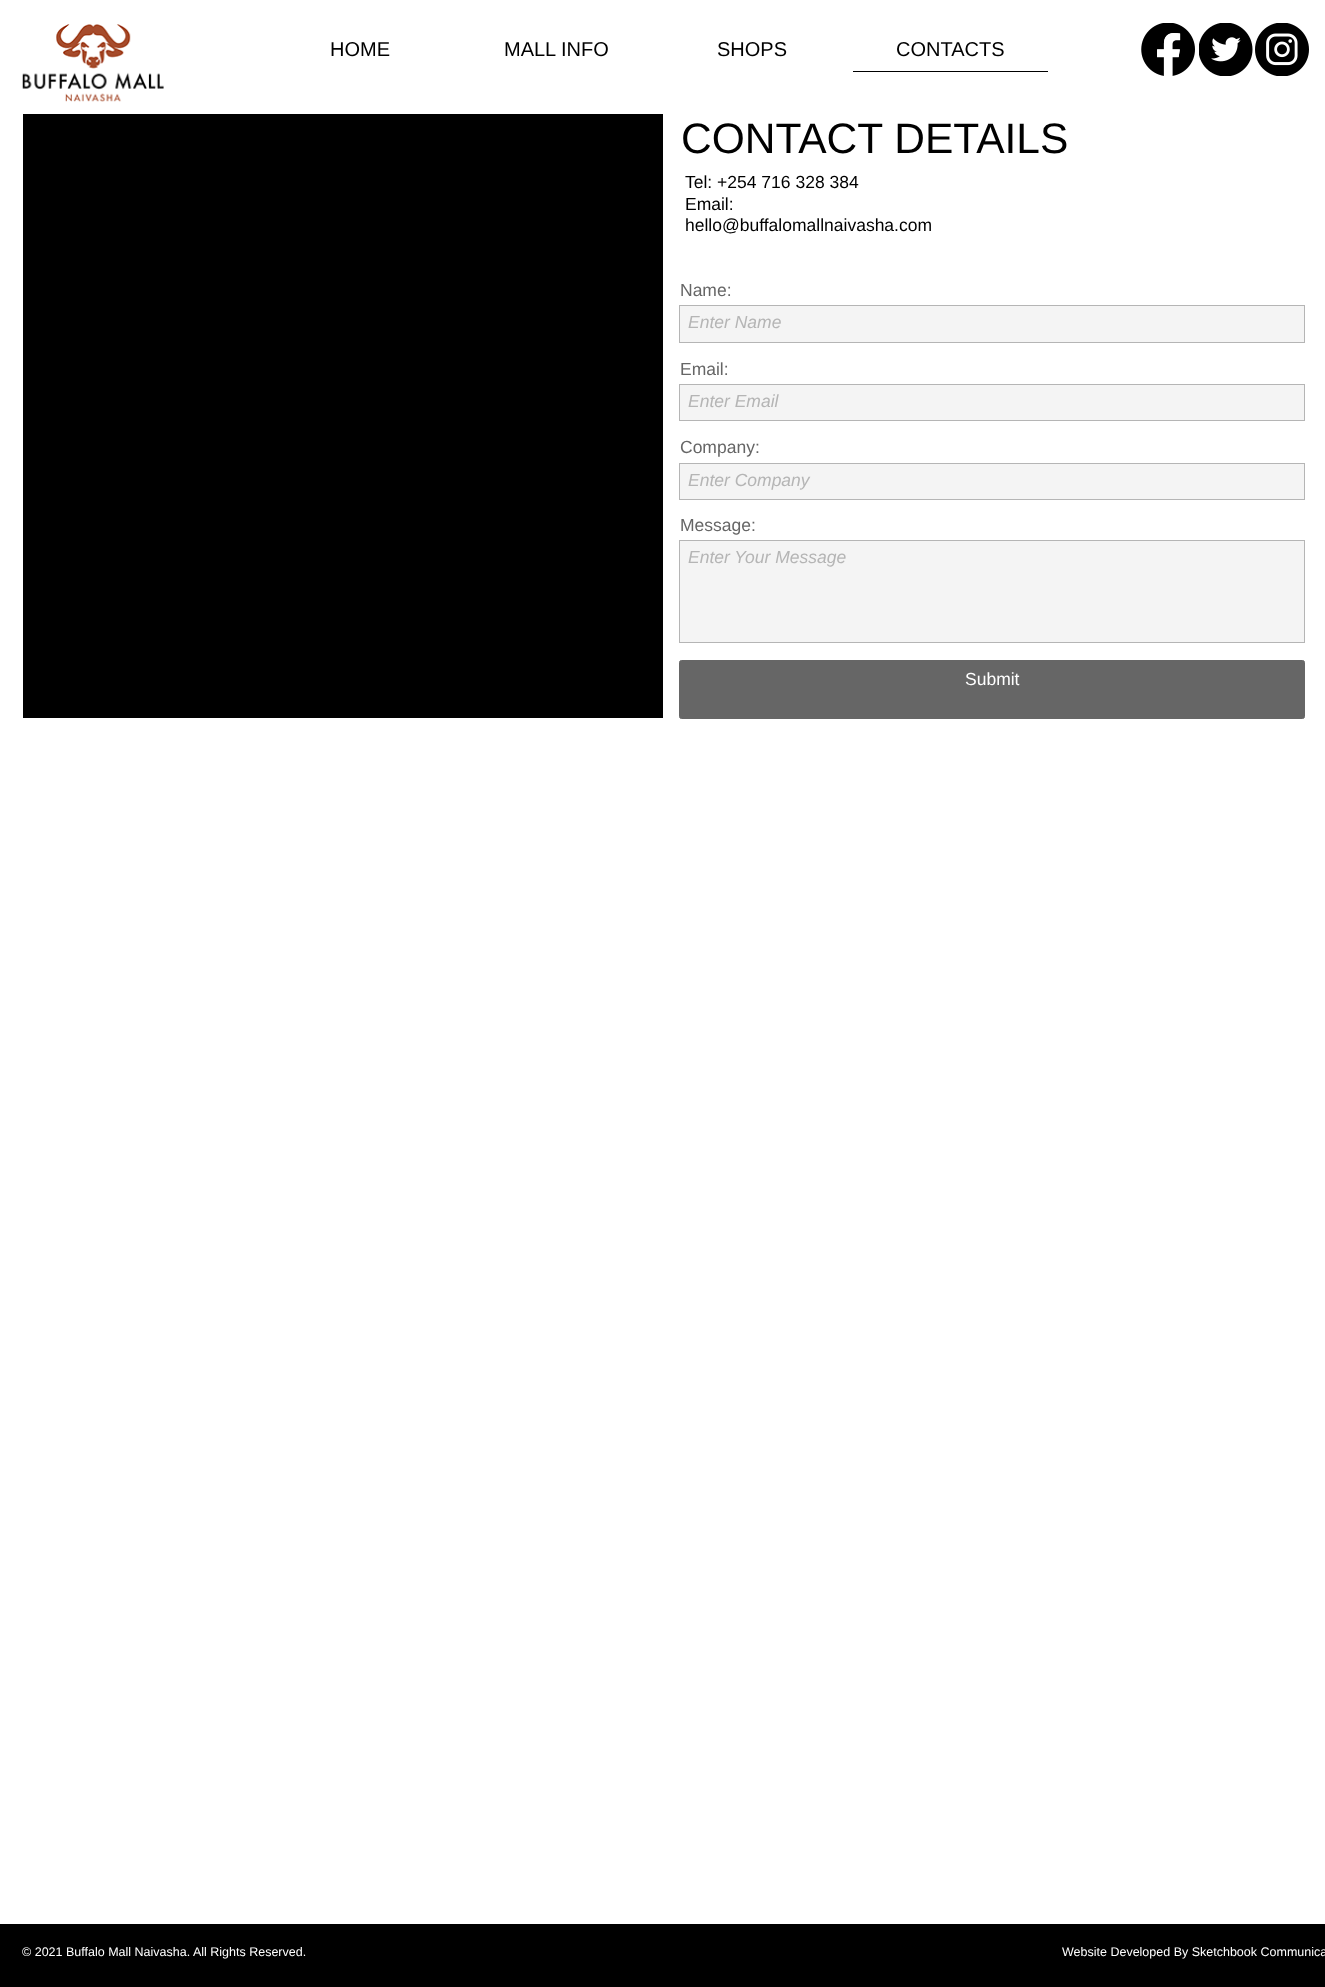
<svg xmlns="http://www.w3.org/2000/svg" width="1325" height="1987">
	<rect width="100%" height="100%" fill="#FFFFFF" />
	<image x="22" y="24" width="142" height="78" href="assets/img1.png" />
	<g font-family="Liberation Sans" font-size="20" fill="#000000">
		<text x="330" y="56">HOME</text>
		<text x="504" y="56">MALL INFO</text>
		<text x="717" y="56">SHOPS</text>
	</g>
	<rect x="853" y="71" width="195" height="1" fill="#000000" />
	<text x="896" y="56" font-family="Liberation Sans" font-size="20" fill="#000000">CONTACTS</text>
	<image x="1141" y="23" width="54" height="53" href="assets/img2.png" />
	<image x="1199" y="23" width="54" height="53" href="assets/img3.png" />
	<image x="1255" y="23" width="54" height="53" href="assets/img4.png" />
	<rect x="23" y="114" width="640" height="604" fill="#000000" />
	<text x="681" y="153" font-family="Liberation Sans" font-size="42.5" fill="#000000">CONTACT DETAILS</text>
	<g font-family="Liberation Sans" font-size="17.5" fill="#000000">
		<text x="685" y="188">Tel: +254 716 328 384</text>
		<text x="685" y="210">Email:</text>
		<text x="685" y="231">hello@buffalomallnaivasha.com</text>
	</g>
	<text x="680" y="296" font-family="Liberation Sans" font-size="17.5" fill="#666666">Name:</text>
	<rect x="679.5" y="305.5" width="625" height="37" fill="#F4F4F4" stroke="#B5B5B5" />
	<text x="688" y="328" font-family="Liberation Sans" font-size="17.5" font-style="italic" fill="#B5B5B5">Enter Name</text>
	<text x="680" y="375" font-family="Liberation Sans" font-size="17.5" fill="#666666">Email:</text>
	<rect x="679.5" y="384.5" width="625" height="36" fill="#F4F4F4" stroke="#B5B5B5" />
	<text x="688" y="407" font-family="Liberation Sans" font-size="17.5" font-style="italic" fill="#B5B5B5">Enter Email</text>
	<text x="680" y="453" font-family="Liberation Sans" font-size="17.5" fill="#666666">Company:</text>
	<rect x="679.5" y="463.5" width="625" height="36" fill="#F4F4F4" stroke="#B5B5B5" />
	<text x="688" y="486" font-family="Liberation Sans" font-size="17.5" font-style="italic" fill="#B5B5B5">Enter Company</text>
	<text x="680" y="531" font-family="Liberation Sans" font-size="17.5" fill="#666666">Message:</text>
	<rect x="679.5" y="540.5" width="625" height="102" fill="#F4F4F4" stroke="#B5B5B5" />
	<text x="688" y="563" font-family="Liberation Sans" font-size="17.5" font-style="italic" fill="#B5B5B5">Enter Your Message</text>
	<rect x="679.5" y="660.5" width="625" height="58" rx="2" fill="#666666" stroke="#666666" />
	<text x="965" y="685" font-family="Liberation Sans" font-size="17.5" fill="#FFFFFF">Submit</text>
	<rect x="0" y="1924" width="1325" height="63" fill="#000000" />
	<g font-family="Liberation Sans" font-size="12.5" fill="#FFFFFF">
		<text x="22" y="1956">© 2021 Buffalo Mall Naivasha. All Rights Reserved.</text>
		<text x="1062" y="1956">Website Developed By Sketchbook Communica</text>
	</g>
</svg>
